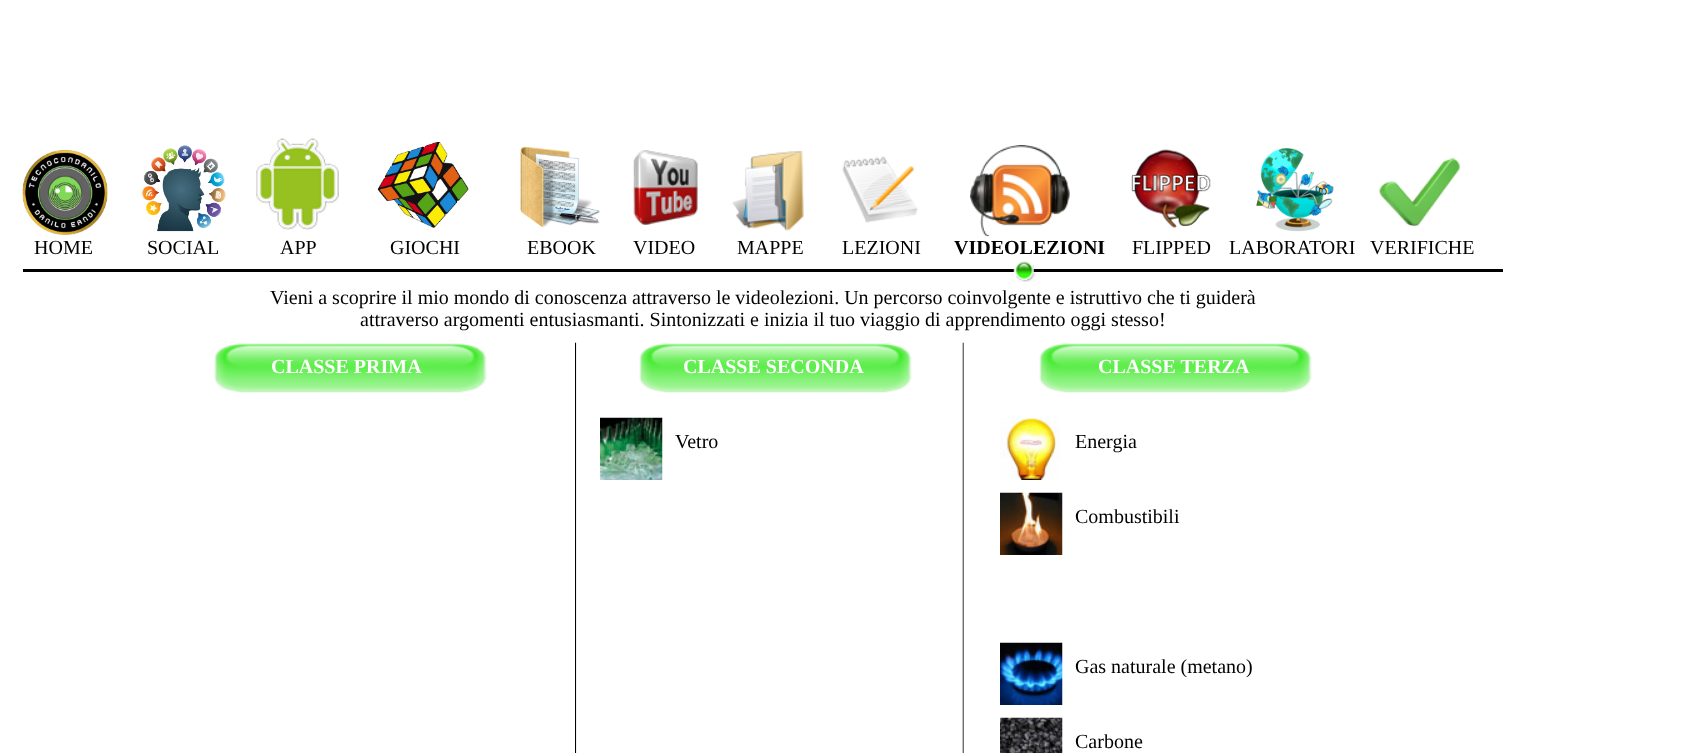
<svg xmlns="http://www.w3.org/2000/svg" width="1697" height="753">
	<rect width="100%" height="100%" fill="#FFFFFF" />
	<image x="22" y="150" width="86" height="85" href="assets/img1.png" />
	<image x="142" y="145" width="84" height="87" href="assets/img2.png" />
	<image x="256" y="138" width="83" height="92" href="assets/img3.png" />
	<image x="377" y="142" width="92" height="86" href="assets/img4.png" />
	<image x="520" y="146" width="80" height="81" href="assets/img5.png" />
	<image x="633" y="150" width="65" height="75" href="assets/img6.png" />
	<image x="732" y="151" width="72" height="80" href="assets/img7.png" />
	<image x="842" y="156" width="76" height="67" href="assets/img8.png" />
	<image x="970" y="145" width="100" height="92" href="assets/img9.png" />
	<image x="1131" y="149" width="80" height="79" href="assets/img10.png" />
	<image x="1256" y="148" width="79" height="84" href="assets/img11.png" />
	<image x="1379" y="157" width="81" height="70" href="assets/img12.png" />
	<g font-family="Liberation Serif" font-size="20" fill="#000000">
		<text x="34" y="254">HOME</text>
		<text x="147" y="254">SOCIAL</text>
		<text x="280" y="254">APP</text>
		<text x="390" y="254">GIOCHI</text>
		<text x="527" y="254">EBOOK</text>
		<text x="633" y="254">VIDEO</text>
		<text x="737" y="254">MAPPE</text>
		<text x="842" y="254">LEZIONI</text>
	</g>
	<text x="954" y="254" font-family="Liberation Serif" font-size="20" font-weight="700" fill="#000000">VIDEOLEZIONI</text>
	<g font-family="Liberation Serif" font-size="20" fill="#000000">
		<text x="1132" y="254">FLIPPED</text>
		<text x="1229" y="254">LABORATORI</text>
		<text x="1370" y="254">VERIFICHE</text>
	</g>
	<rect x="23" y="269" width="1480" height="3" fill="#000000" />
	<image x="1013" y="261" width="23" height="21" href="assets/img13.png" />
	<g font-family="Liberation Serif" font-size="20" fill="#000000">
		<text x="270" y="304">Vieni a scoprire il mio mondo di conoscenza attraverso le videolezioni. Un percorso coinvolgente e istruttivo che ti guiderà</text>
		<text x="360" y="326">attraverso argomenti entusiasmanti. Sintonizzati e inizia il tuo viaggio di apprendimento oggi stesso!</text>
	</g>
	<image x="214" y="343" width="273" height="50" href="assets/img14.png" />
	<image x="575" y="342" width="2" height="411" href="assets/img15.png" />
	<image x="639" y="343" width="273" height="50" href="assets/img16.png" />
	<image x="962" y="342" width="2" height="411" href="assets/img17.png" />
	<image x="1039" y="343" width="273" height="50" href="assets/img18.png" />
	<g font-family="Liberation Serif" font-size="20" font-weight="700" fill="#FFFFFF">
		<text x="271" y="373">CLASSE PRIMA</text>
		<text x="683" y="373">CLASSE SECONDA</text>
		<text x="1098" y="373">CLASSE TERZA</text>
	</g>
	<image x="600" y="417" width="63" height="63" href="assets/img19.png" />
	<text x="675" y="448" font-family="Liberation Serif" font-size="20" fill="#000000">Vetro</text>
	<image x="1000" y="417" width="60" height="63" href="assets/img20.png" />
	<text x="1075" y="448" font-family="Liberation Serif" font-size="20" fill="#000000">Energia</text>
	<image x="1000" y="492" width="63" height="63" href="assets/img21.png" />
	<text x="1075" y="523" font-family="Liberation Serif" font-size="20" fill="#000000">Combustibili</text>
	<image x="1000" y="642" width="63" height="63" href="assets/img22.png" />
	<text x="1075" y="673" font-family="Liberation Serif" font-size="20" fill="#000000">Gas naturale (metano)</text>
	<image x="1000" y="717" width="63" height="36" href="assets/img23.png" />
	<text x="1075" y="748" font-family="Liberation Serif" font-size="20" fill="#000000">Carbone</text>
</svg>
